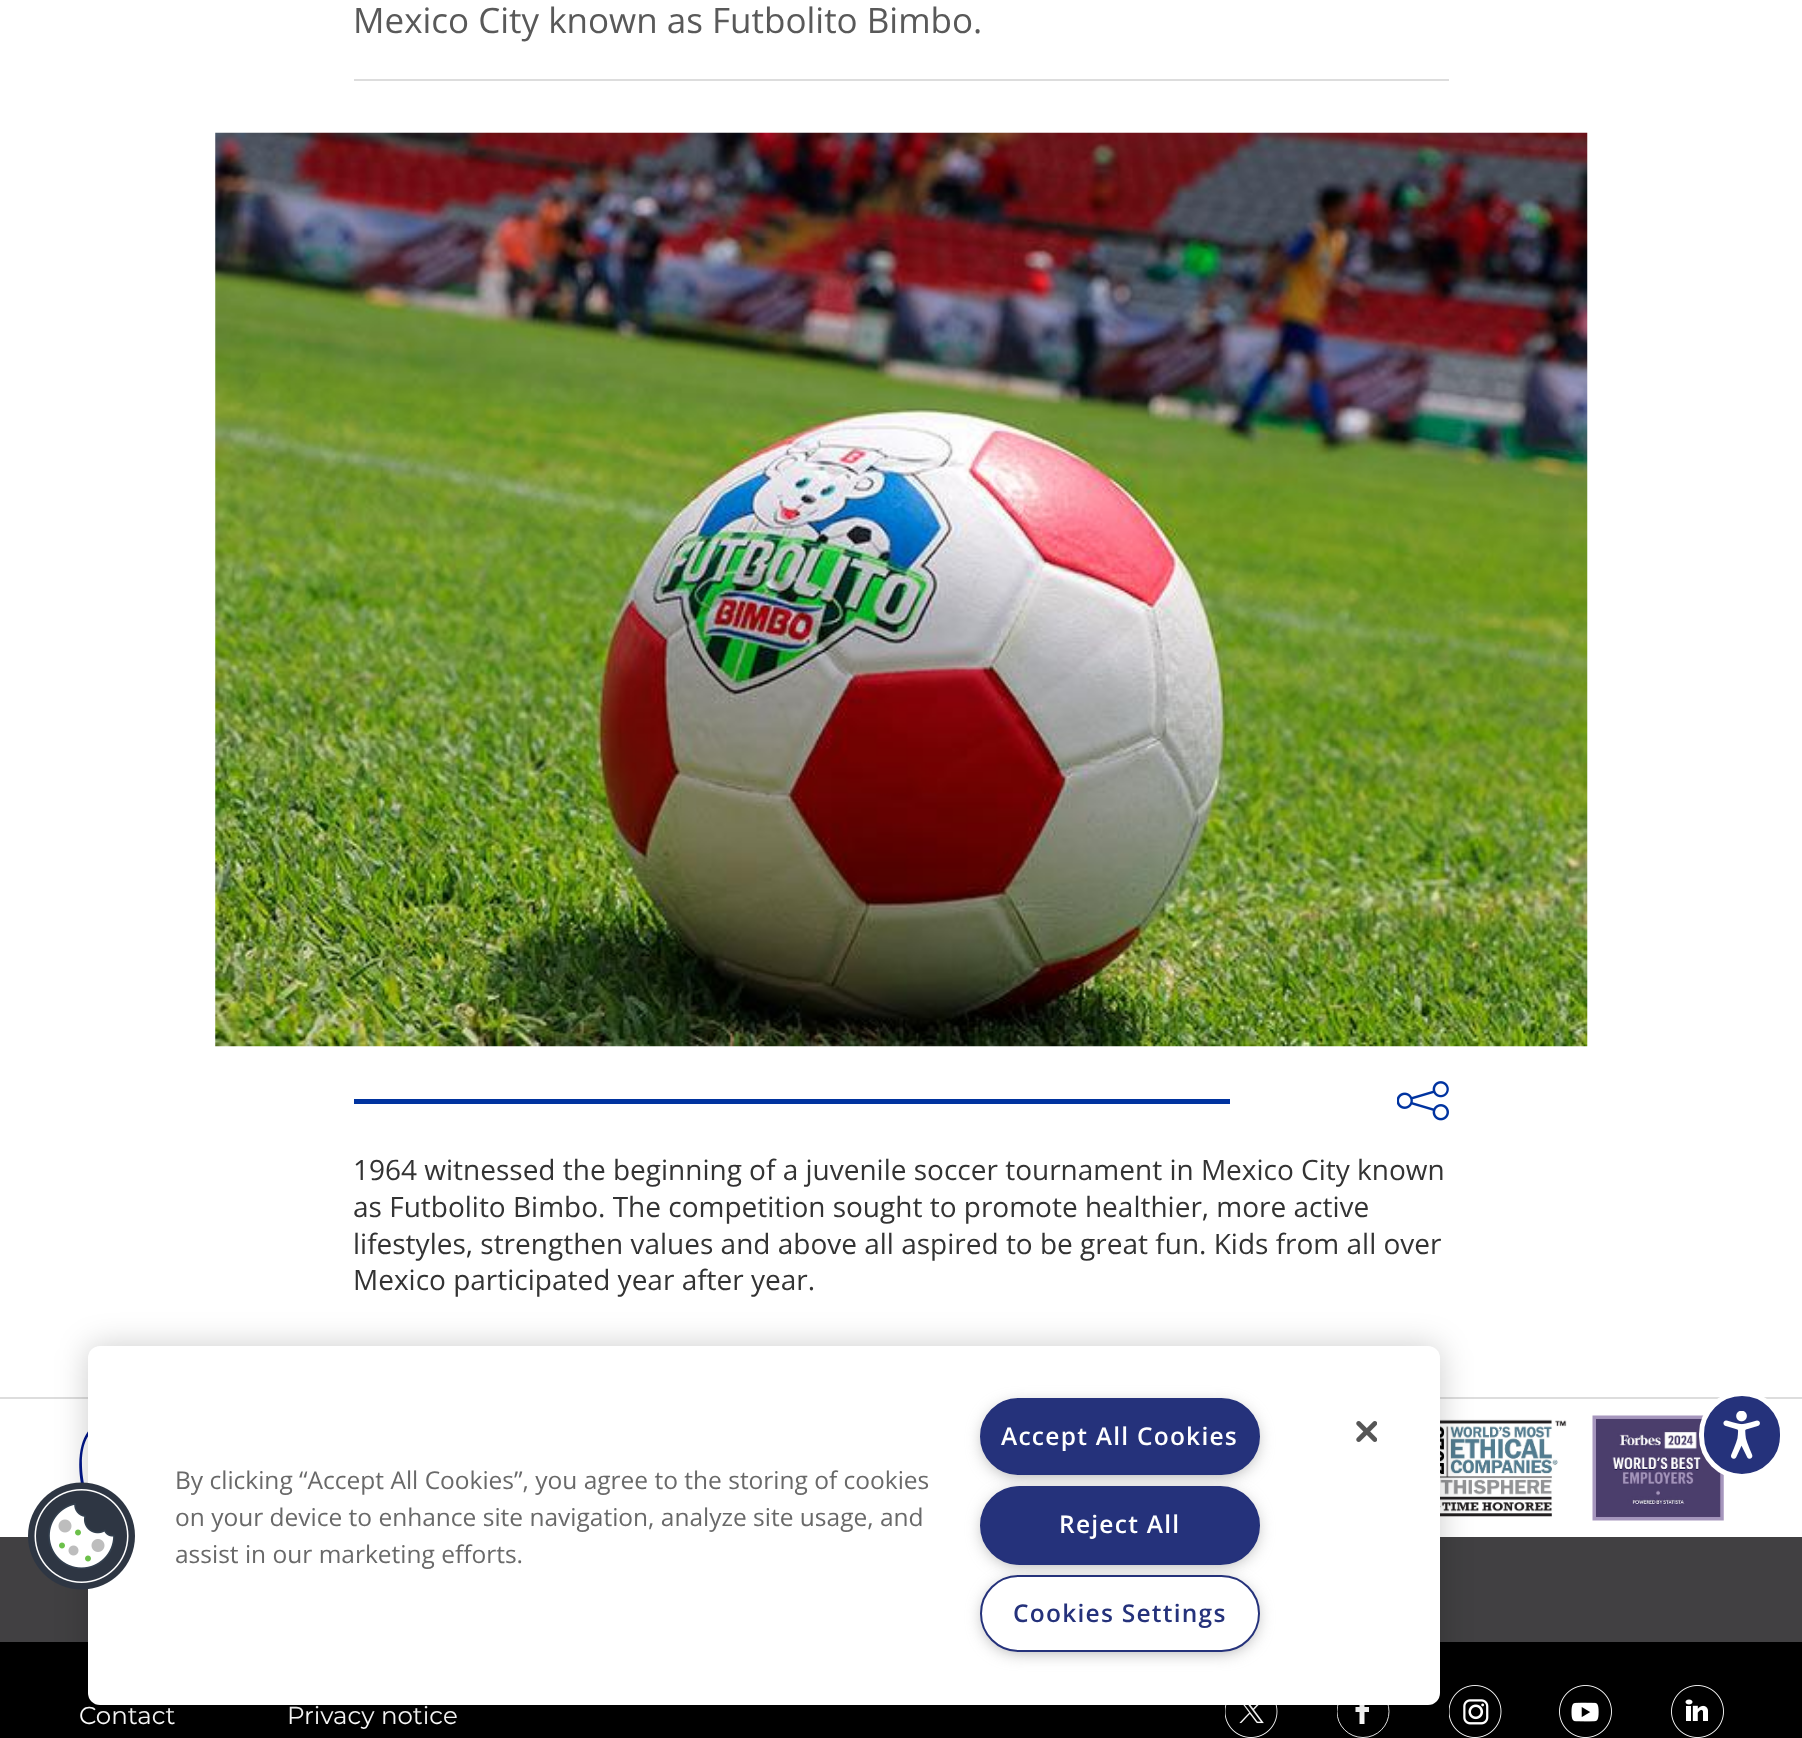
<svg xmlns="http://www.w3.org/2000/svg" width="1802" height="1738">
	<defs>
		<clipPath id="clip1"><rect x="1337" y="1685" width="53" height="53" /></clipPath>
	</defs>
	<rect width="100%" height="100%" fill="#FFFFFF" />
	<rect x="354" y="79" width="1095" height="2" fill="#DDDDDD" />
	<text x="353" y="33" font-family="Open Sans" font-size="35" fill="#595959">Mexico City known as Futbolito Bimbo.</text>
	<image x="215" y="132" width="1373" height="915" href="assets/img1.png" />
	<rect x="354" y="1099" width="876" height="5" fill="#0033A0" />
	<image x="1397" y="1081" width="52" height="40" href="assets/img2.png" />
	<g font-family="Open Sans" font-size="28" fill="#333333">
		<text x="353" y="1180">1964 witnessed the beginning of a juvenile soccer tournament in Mexico City known</text>
		<text x="353" y="1217">as Futbolito Bimbo. The competition sought to promote healthier, more active</text>
		<text x="353" y="1254">lifestyles, strengthen values and above all aspired to be great fun. Kids from all over</text>
		<text x="353" y="1290">Mexico participated year after year.</text>
	</g>
	<rect x="0" y="1397" width="1802" height="2" fill="#DDDDDD" />
	<image x="79" y="1431" width="9" height="52" href="assets/img3.png" />
	<image x="1440" y="1419" width="127" height="98" href="assets/img4.png" />
	<image x="1592" y="1415" width="132" height="106" href="assets/img5.png" />
	<rect x="0" y="1537" width="1802" height="105" fill="#414042" />
	<rect x="0" y="1642" width="1802" height="96" fill="#000000" />
	<g font-family="Montserrat" font-size="24.5" fill="#FFFFFF">
		<text x="79" y="1724">Contact</text>
		<text x="287" y="1724">Privacy notice</text>
	</g>
	<image x="1225" y="1705" width="53" height="33" href="assets/img6.png" />
	<g clip-path="url(#clip1)">
		<circle cx="1363" cy="1711.5" r="26" fill="none" stroke="#FFFFFF" stroke-width="0.9" />
	</g>
	<path d="M1369 1702C1364 1702 1364.5 1702.5 1364.5 1707H1369V1712H1364.5V1724H1359.5V1712H1355.5V1707H1359.5V1702.5C1360 1697 1365 1697.5 1369 1697.5Z" fill="#FFFFFF" />
	<image x="1449" y="1685" width="53" height="53" href="assets/img7.png" />
	<image x="1559" y="1685" width="53" height="53" href="assets/img8.png" />
	<image x="1671" y="1685" width="53" height="53" href="assets/img9.png" />
	<rect x="1701.5" y="1393.5" width="81" height="83" rx="40.5" fill="#25327B" stroke="#FFFFFF" stroke-width="5" />
	<image x="1723" y="1411" width="37" height="48" href="assets/img10.png" />
	<rect x="88" y="1346" width="1352" height="359" rx="12" fill="#000000" fill-opacity="0.2" filter="blur(16px)" />
	<rect x="88" y="1346" width="1352" height="359" rx="12" fill="#FFFFFF" />
	<image x="28" y="1482" width="107" height="108" href="assets/img11.png" />
	<g font-family="Open Sans" font-size="24.5" fill="#696969">
		<text x="175" y="1489">By clicking “Accept All Cookies”, you agree to the storing of cookies</text>
		<text x="175" y="1526">on your device to enhance site navigation, analyze site usage, and</text>
		<text x="175" y="1563">assist in our marketing efforts.</text>
	</g>
	<rect x="985" y="1407" width="270" height="67" rx="33.5" fill="#999999" filter="blur(9px)" />
	<rect x="981" y="1399" width="278" height="75" rx="37.5" fill="#25327B" stroke="#25327B" stroke-width="2" />
	<text x="1001" y="1445" font-family="Open Sans" font-size="24.5" font-weight="600" letter-spacing="1.25" fill="#FFFFFF">Accept All Cookies</text>
	<rect x="985" y="1495" width="270" height="68" rx="34" fill="#999999" filter="blur(9px)" />
	<rect x="981" y="1487" width="278" height="77" rx="38.5" fill="#25327B" stroke="#25327B" stroke-width="2" />
	<text x="1059" y="1533" font-family="Open Sans" font-size="24.5" font-weight="600" letter-spacing="1.25" fill="#FFFFFF">Reject All</text>
	<rect x="985" y="1584" width="270" height="66" rx="33" fill="#999999" filter="blur(9px)" />
	<rect x="981" y="1576" width="278" height="75" rx="37.5" fill="#FFFFFF" stroke="#25327B" stroke-width="2" />
	<text x="1013" y="1622" font-family="Open Sans" font-size="24.5" font-weight="600" letter-spacing="1.25" fill="#25327B">Cookies Settings</text>
	<image x="1356" y="1421" width="21" height="21" href="assets/img12.png" />
</svg>
